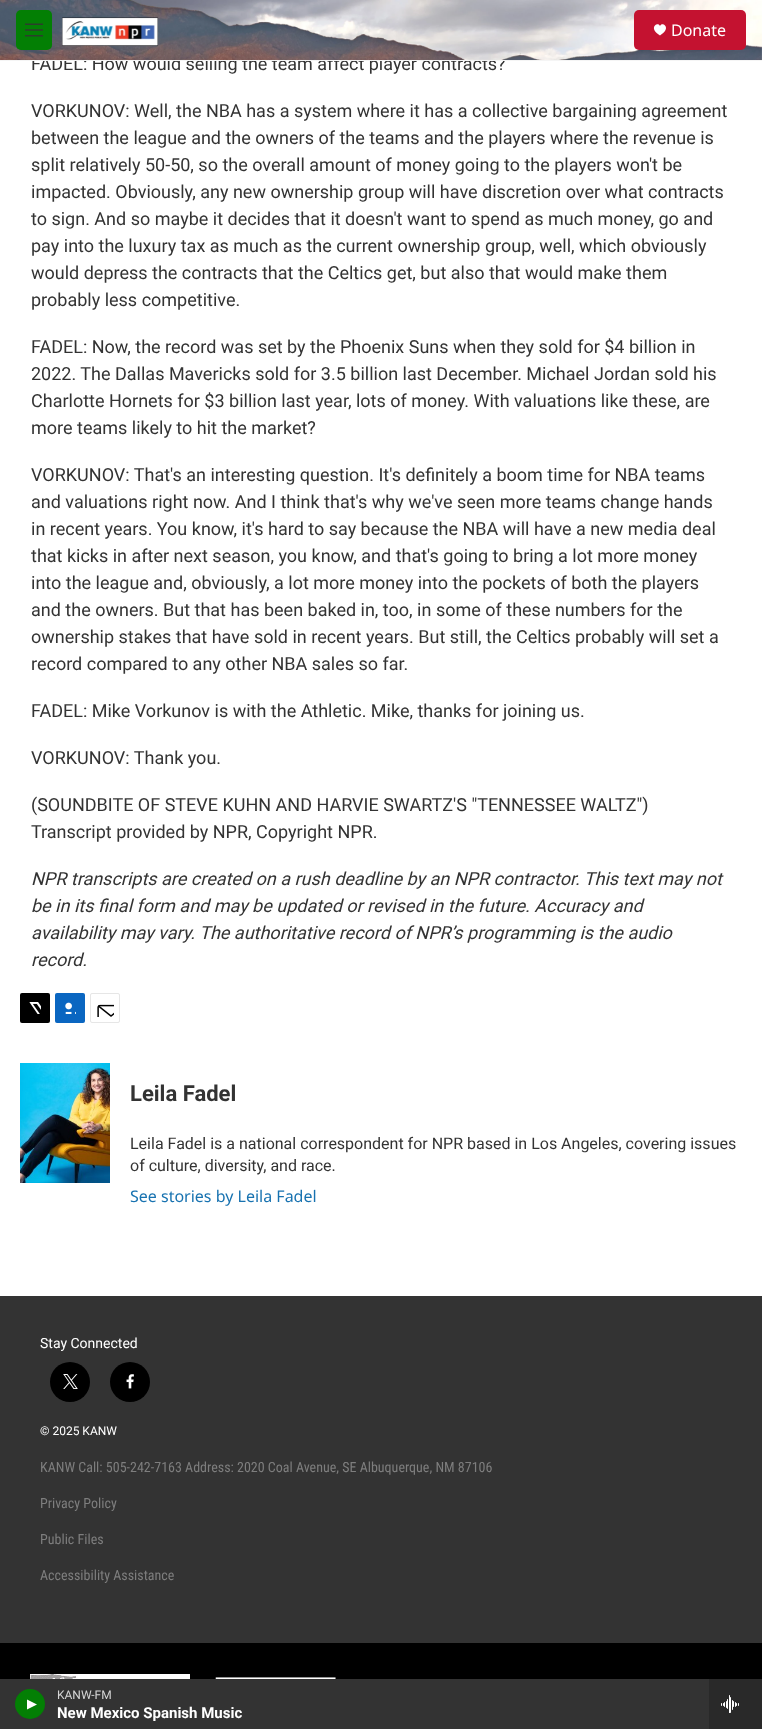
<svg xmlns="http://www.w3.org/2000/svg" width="762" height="1729">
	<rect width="100%" height="100%" fill="#FFFFFF" />
	<text x="31" y="70" font-family="Roboto" font-size="18" fill="#333333">FADEL: How would selling the team affect player contracts?</text>
	<rect x="0" y="60" width="762" height="1" fill="#F5F5F5" />
	<image x="0" y="0" width="762" height="60" href="assets/img1.png" />
	<rect x="16" y="10" width="36" height="40" rx="5" fill="#037F04" />
	<image x="25" y="23" width="18" height="14" href="assets/img2.png" />
	<image x="62" y="17" width="96" height="29" href="assets/img3.png" />
	<rect x="634" y="10" width="112" height="40" rx="5" fill="#C41230" />
	<path d="M660 26C658 21 647.5 28 660 35.5C672.5 28 662 21 660 26Z" fill="#FFFFFF" />
	<text x="671" y="36" font-family="Noto Sans" font-size="16" fill="#FFFFFF">Donate</text>
	<rect x="0" y="1679" width="709" height="50" fill="#333333" />
	<circle cx="30" cy="1704" r="15" fill="#037F04" />
	<path d="M27 1699.5L37 1704.5L27 1709.5Z" fill="#FFFFFF" />
	<text x="57" y="1699" font-family="Roboto" font-size="12" fill="#D6D6D6">KANW-FM</text>
	<text x="57" y="1718" font-family="'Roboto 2'" font-size="15" font-weight="700" fill="#FFFFFF">New Mexico Spanish Music</text>
	<rect x="709" y="1679" width="53" height="50" fill="#292929" />
	<image x="721" y="1695" width="18" height="18" href="assets/img4.png" />
	<g font-family="Roboto" font-size="18" fill="#333333">
		<text x="31" y="117">VORKUNOV: Well, the NBA has a system where it has a collective bargaining agreement</text>
		<text x="31" y="144">between the league and the owners of the teams and the players where the revenue is</text>
		<text x="31" y="171">split relatively 50-50, so the overall amount of money going to the players won't be</text>
		<text x="31" y="198">impacted. Obviously, any new ownership group will have discretion over what contracts</text>
		<text x="31" y="225">to sign. And so maybe it decides that it doesn't want to spend as much money, go and</text>
		<text x="31" y="252">pay into the luxury tax as much as the current ownership group, well, which obviously</text>
		<text x="31" y="279">would depress the contracts that the Celtics get, but also that would make them</text>
		<text x="31" y="306">probably less competitive.</text>
		<text x="31" y="353">FADEL: Now, the record was set by the Phoenix Suns when they sold for $4 billion in</text>
		<text x="31" y="380">2022. The Dallas Mavericks sold for 3.5 billion last December. Michael Jordan sold his</text>
		<text x="31" y="407">Charlotte Hornets for $3 billion last year, lots of money. With valuations like these, are</text>
		<text x="31" y="434">more teams likely to hit the market?</text>
		<text x="31" y="481">VORKUNOV: That's an interesting question. It's definitely a boom time for NBA teams</text>
		<text x="31" y="508">and valuations right now. And I think that's why we've seen more teams change hands</text>
		<text x="31" y="535">in recent years. You know, it's hard to say because the NBA will have a new media deal</text>
		<text x="31" y="562">that kicks in after next season, you know, and that's going to bring a lot more money</text>
		<text x="31" y="589">into the league and, obviously, a lot more money into the pockets of both the players</text>
		<text x="31" y="616">and the owners. But that has been baked in, too, in some of these numbers for the</text>
		<text x="31" y="643">ownership stakes that have sold in recent years. But still, the Celtics probably will set a</text>
		<text x="31" y="670">record compared to any other NBA sales so far.</text>
		<text x="31" y="717">FADEL: Mike Vorkunov is with the Athletic. Mike, thanks for joining us.</text>
		<text x="31" y="764">VORKUNOV: Thank you.</text>
		<text x="31" y="811">(SOUNDBITE OF STEVE KUHN AND HARVIE SWARTZ'S "TENNESSEE WALTZ")</text>
		<text x="31" y="838">Transcript provided by NPR, Copyright NPR.</text>
	</g>
	<g font-family="Roboto" font-size="18" font-style="italic" fill="#333333">
		<text x="31" y="885">NPR transcripts are created on a rush deadline by an NPR contractor. This text may not</text>
		<text x="31" y="912">be in its final form and may be updated or revised in the future. Accuracy and</text>
		<text x="31" y="939">availability may vary. The authoritative record of NPR’s programming is the audio</text>
		<text x="31" y="966">record.</text>
	</g>
	<rect x="20" y="993" width="30" height="30" rx="2" fill="#000000" />
	<image x="29" y="1002" width="12" height="12" href="assets/img5.png" />
	<rect x="55" y="993" width="30" height="30" rx="2" fill="#0A66C1" />
	<image x="65" y="1002" width="11" height="12" href="assets/img6.png" />
	<rect x="90.5" y="993.5" width="29" height="29" rx="1.5" fill="none" stroke="#E6E6E6" />
	<image x="97" y="1004" width="17" height="13" href="assets/img7.png" />
	<image x="20" y="1063" width="90" height="120" href="assets/img8.png" />
	<text x="130" y="1101" font-family="Roboto" font-size="22" font-weight="700" fill="#333333">Leila Fadel</text>
	<g font-family="Roboto" font-size="16" fill="#333333">
		<text x="130" y="1149">Leila Fadel is a national correspondent for NPR based in Los Angeles, covering issues</text>
		<text x="130" y="1171">of culture, diversity, and race.</text>
	</g>
	<text x="130" y="1202" font-family="Noto Sans" font-size="16" fill="#1772B0">See stories by Leila Fadel</text>
	<rect x="0" y="1296" width="762" height="347" fill="#333333" />
	<text x="40" y="1348" font-family="Roboto" font-size="14" fill="#FFFFFF">Stay Connected</text>
	<circle cx="70" cy="1382" r="20" fill="#000000" />
	<image x="63" y="1374" width="15" height="15" href="assets/img9.png" />
	<circle cx="130" cy="1382" r="20" fill="#000000" />
	<image x="126" y="1374" width="8" height="15" href="assets/img10.png" />
	<text x="40" y="1435" font-family="Roboto" font-size="12" fill="#FFFFFF">© 2025 KANW</text>
	<g font-family="Roboto Condensed" font-size="14" fill="#7E7E7E">
		<text x="40" y="1472">KANW Call: 505-242-7163 Address: 2020 Coal Avenue, SE Albuquerque, NM 87106</text>
		<text x="40" y="1508">Privacy Policy</text>
		<text x="40" y="1544">Public Files</text>
		<text x="40" y="1580">Accessibility Assistance</text>
	</g>
	<rect x="0" y="1643" width="762" height="36" fill="#000000" />
	<image x="30" y="1674" width="160" height="5" href="assets/img11.png" />
	<image x="215" y="1677" width="121" height="2" href="assets/img12.png" />
</svg>
